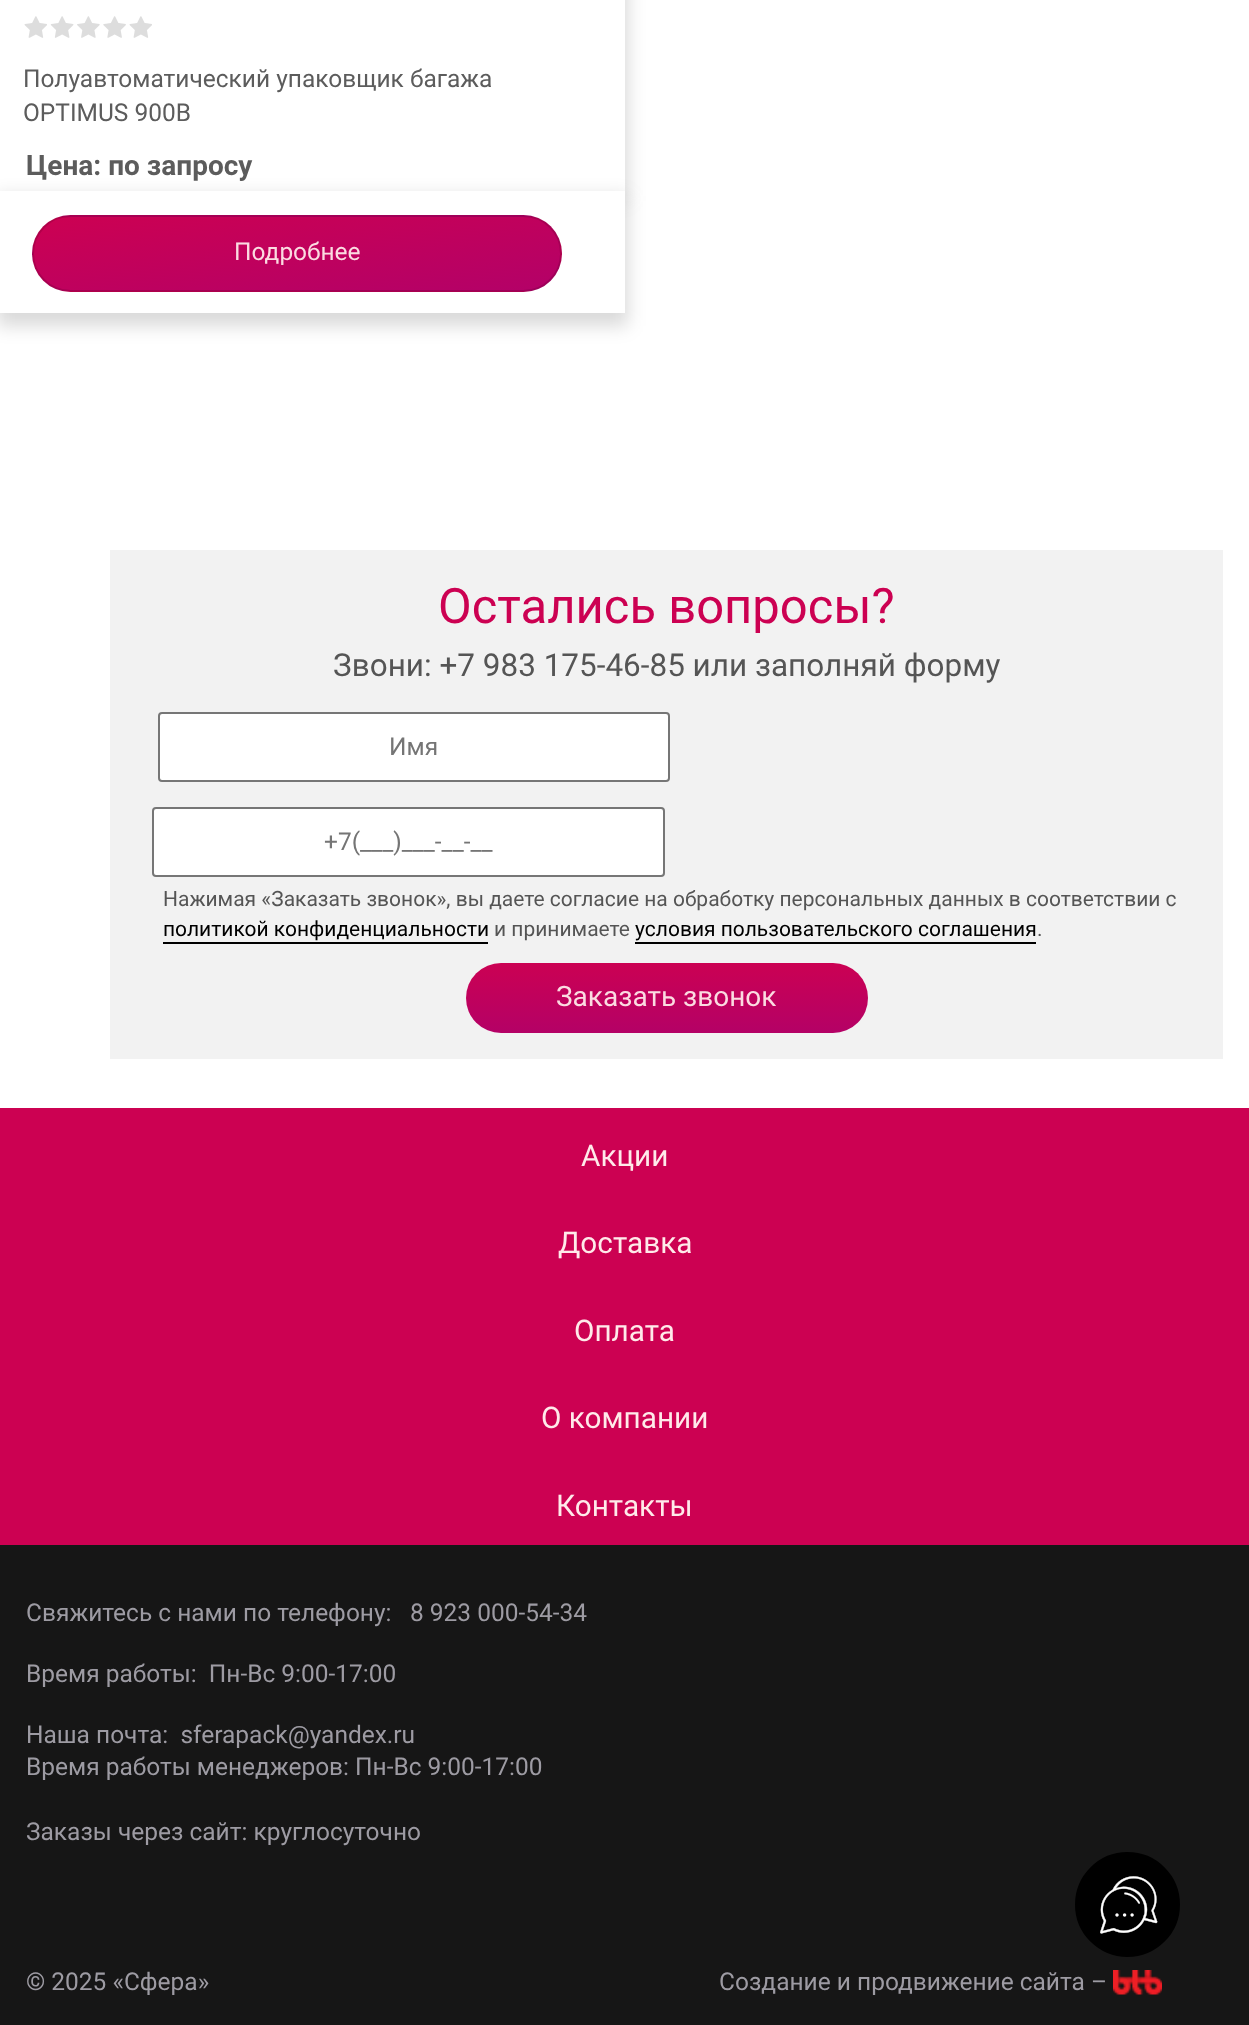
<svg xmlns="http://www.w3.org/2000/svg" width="1249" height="2025">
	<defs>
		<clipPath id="clip1"><path d="M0 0H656V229H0ZM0-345H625V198H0Z" clip-rule="evenodd" /></clipPath>
		<clipPath id="clip2"><rect x="32" y="215" width="530" height="77" rx="38.5" /></clipPath>
		<linearGradient id="g1" gradientUnits="userSpaceOnUse" x1="287" y1="108" x2="307" y2="252"><stop offset="0" stop-color="#CC0152" /><stop offset="1" stop-color="#B30168" /></linearGradient>
		<linearGradient id="g2" gradientUnits="userSpaceOnUse" x1="-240" y1="182" x2="-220" y2="326"><stop offset="0" stop-color="#CC0152" /><stop offset="1" stop-color="#B30168" /></linearGradient>
		<linearGradient id="g3" gradientUnits="userSpaceOnUse" x1="287" y1="182" x2="307" y2="326"><stop offset="0" stop-color="#CC0152" /><stop offset="1" stop-color="#B30168" /></linearGradient>
		<linearGradient id="g4" gradientUnits="userSpaceOnUse" x1="813" y1="182" x2="833" y2="326"><stop offset="0" stop-color="#CC0152" /><stop offset="1" stop-color="#B30168" /></linearGradient>
		<linearGradient id="g5" gradientUnits="userSpaceOnUse" x1="287" y1="255" x2="307" y2="399"><stop offset="0" stop-color="#CC0152" /><stop offset="1" stop-color="#B30168" /></linearGradient>
		<linearGradient id="g6" gradientUnits="userSpaceOnUse" x1="666" y1="963" x2="666" y2="1033"><stop offset="0" stop-color="#CB0153" /><stop offset="1" stop-color="#B40166" /></linearGradient>
	</defs>
	<rect width="100%" height="100%" fill="#FFFFFF" />
	<g clip-path="url(#clip1)">
		<rect x="-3" y="-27" width="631" height="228" fill="#000000" fill-opacity="0.15" filter="blur(9px)" />
	</g>
	<image x="24" y="16" width="23" height="22" href="assets/img1.png" />
	<image x="50" y="16" width="24" height="22" href="assets/img2.png" />
	<image x="77" y="16" width="23" height="22" href="assets/img3.png" />
	<image x="103" y="16" width="23" height="22" href="assets/img4.png" />
	<image x="129" y="16" width="23" height="22" href="assets/img1.png" />
	<g font-family="Roboto" font-size="24.5" fill="#5C5C5C">
		<text x="23" y="87">Полуавтоматический упаковщик багажа</text>
		<text x="23" y="121">OPTIMUS 900B</text>
	</g>
	<text x="26" y="175" font-family="Roboto" font-size="28" font-weight="700" fill="#5C5C5C">Цена: по запросу</text>
	<rect x="-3" y="196" width="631" height="130" fill="#000000" fill-opacity="0.15" filter="blur(9px)" />
	<rect x="0" y="191" width="625" height="122" fill="#FFFFFF" />
	<g clip-path="url(#clip2)">
		<rect x="58" y="215" width="478" height="2" fill="url(#g1)" />
		<rect x="32" y="245" width="1" height="17" fill="url(#g2)" />
		<rect x="33" y="217" width="527" height="74" fill="url(#g3)" />
		<rect x="560" y="241" width="2" height="25" fill="url(#g4)" />
		<rect x="62" y="291" width="470" height="1" fill="url(#g5)" />
	</g>
	<rect x="33" y="216" width="528" height="75" rx="37.5" fill="none" stroke="#000000" stroke-opacity="0.12" stroke-width="2" />
	<text x="234" y="260" font-family="Roboto" font-size="24.5" fill="#FBDBE1">Подробнее</text>
	<rect x="110" y="550" width="1113" height="509" fill="#F2F2F2" />
	<text x="438" y="623" font-family="Roboto" font-size="49" fill="#CC0152">Остались вопросы?</text>
	<text x="333" y="676" font-family="Roboto" font-size="31.5" fill="#555555">Звони: +7 983 175-46-85 или заполняй форму</text>
	<rect x="159" y="713" width="510" height="68" rx="3" fill="#FFFFFF" stroke="#767676" stroke-width="2" />
	<text x="389" y="755" font-family="Roboto" font-size="24.5" fill="#757575">Имя</text>
	<rect x="153" y="808" width="511" height="68" rx="3" fill="#FFFFFF" stroke="#767676" stroke-width="2" />
	<text x="324" y="850" font-family="Roboto" font-size="24.5" fill="#757575">+7(___)___-__-__</text>
	<text x="163" y="906" font-family="Roboto" font-size="21" fill="#555555">Нажимая «Заказать звонок», вы даете согласие на обработку персональных данных в соответствии с</text>
	<text x="163" y="936" font-family="Roboto" font-size="21" fill="#000000">политикой конфиденциальности</text>
	<rect x="163" y="942" width="325" height="2" fill="#000000" />
	<text x="494" y="936" font-family="Roboto" font-size="21" fill="#555555">и принимаете</text>
	<text x="635" y="936" font-family="Roboto" font-size="21" fill="#000000">условия пользовательского соглашения</text>
	<rect x="635" y="942" width="401" height="2" fill="#000000" />
	<text x="1037" y="936" font-family="Roboto" font-size="21" fill="#555555">.</text>
	<rect x="466" y="963" width="402" height="70" rx="35" fill="url(#g6)" />
	<text x="556" y="1006" font-family="Roboto" font-size="28" fill="#FBDBE1">Заказать звонок</text>
	<rect x="0" y="1108" width="1249" height="437" fill="#CC0152" />
	<g font-family="Roboto" font-size="29.75" fill="#FFEAEA">
		<text x="581" y="1166">Акции</text>
		<text x="558" y="1253">Доставка</text>
		<text x="574" y="1341">Оплата</text>
		<text x="541" y="1428">О компании</text>
		<text x="556" y="1516">Контакты</text>
	</g>
	<rect x="0" y="1545" width="1249" height="480" fill="#161616" />
	<g font-family="Roboto" font-size="24.5" fill="#9D9BA3">
		<text x="26" y="1621">Свяжитесь с нами по телефону:</text>
		<text x="410" y="1621">8 923 000-54-34</text>
		<text x="26" y="1682" xml:space="preserve">Время работы:  Пн-Вс 9:00-17:00</text>
		<text x="26" y="1743" xml:space="preserve">Наша почта:  sferapack@yandex.ru</text>
		<text x="26" y="1775">Время работы менеджеров: Пн-Вс 9:00-17:00</text>
		<text x="26" y="1840">Заказы через сайт: круглосуточно</text>
		<text x="26" y="1990">© 2025 «Сфера»</text>
		<text x="719" y="1990">Создание и продвижение сайта –</text>
	</g>
	<image x="1113" y="1970" width="49" height="25" href="assets/img5.png" />
	<circle cx="1127.5" cy="1904.5" r="50.5" fill="#000000" stroke="#000000" stroke-width="4" />
	<image x="1100" y="1876" width="58" height="58" href="assets/img6.png" />
</svg>
